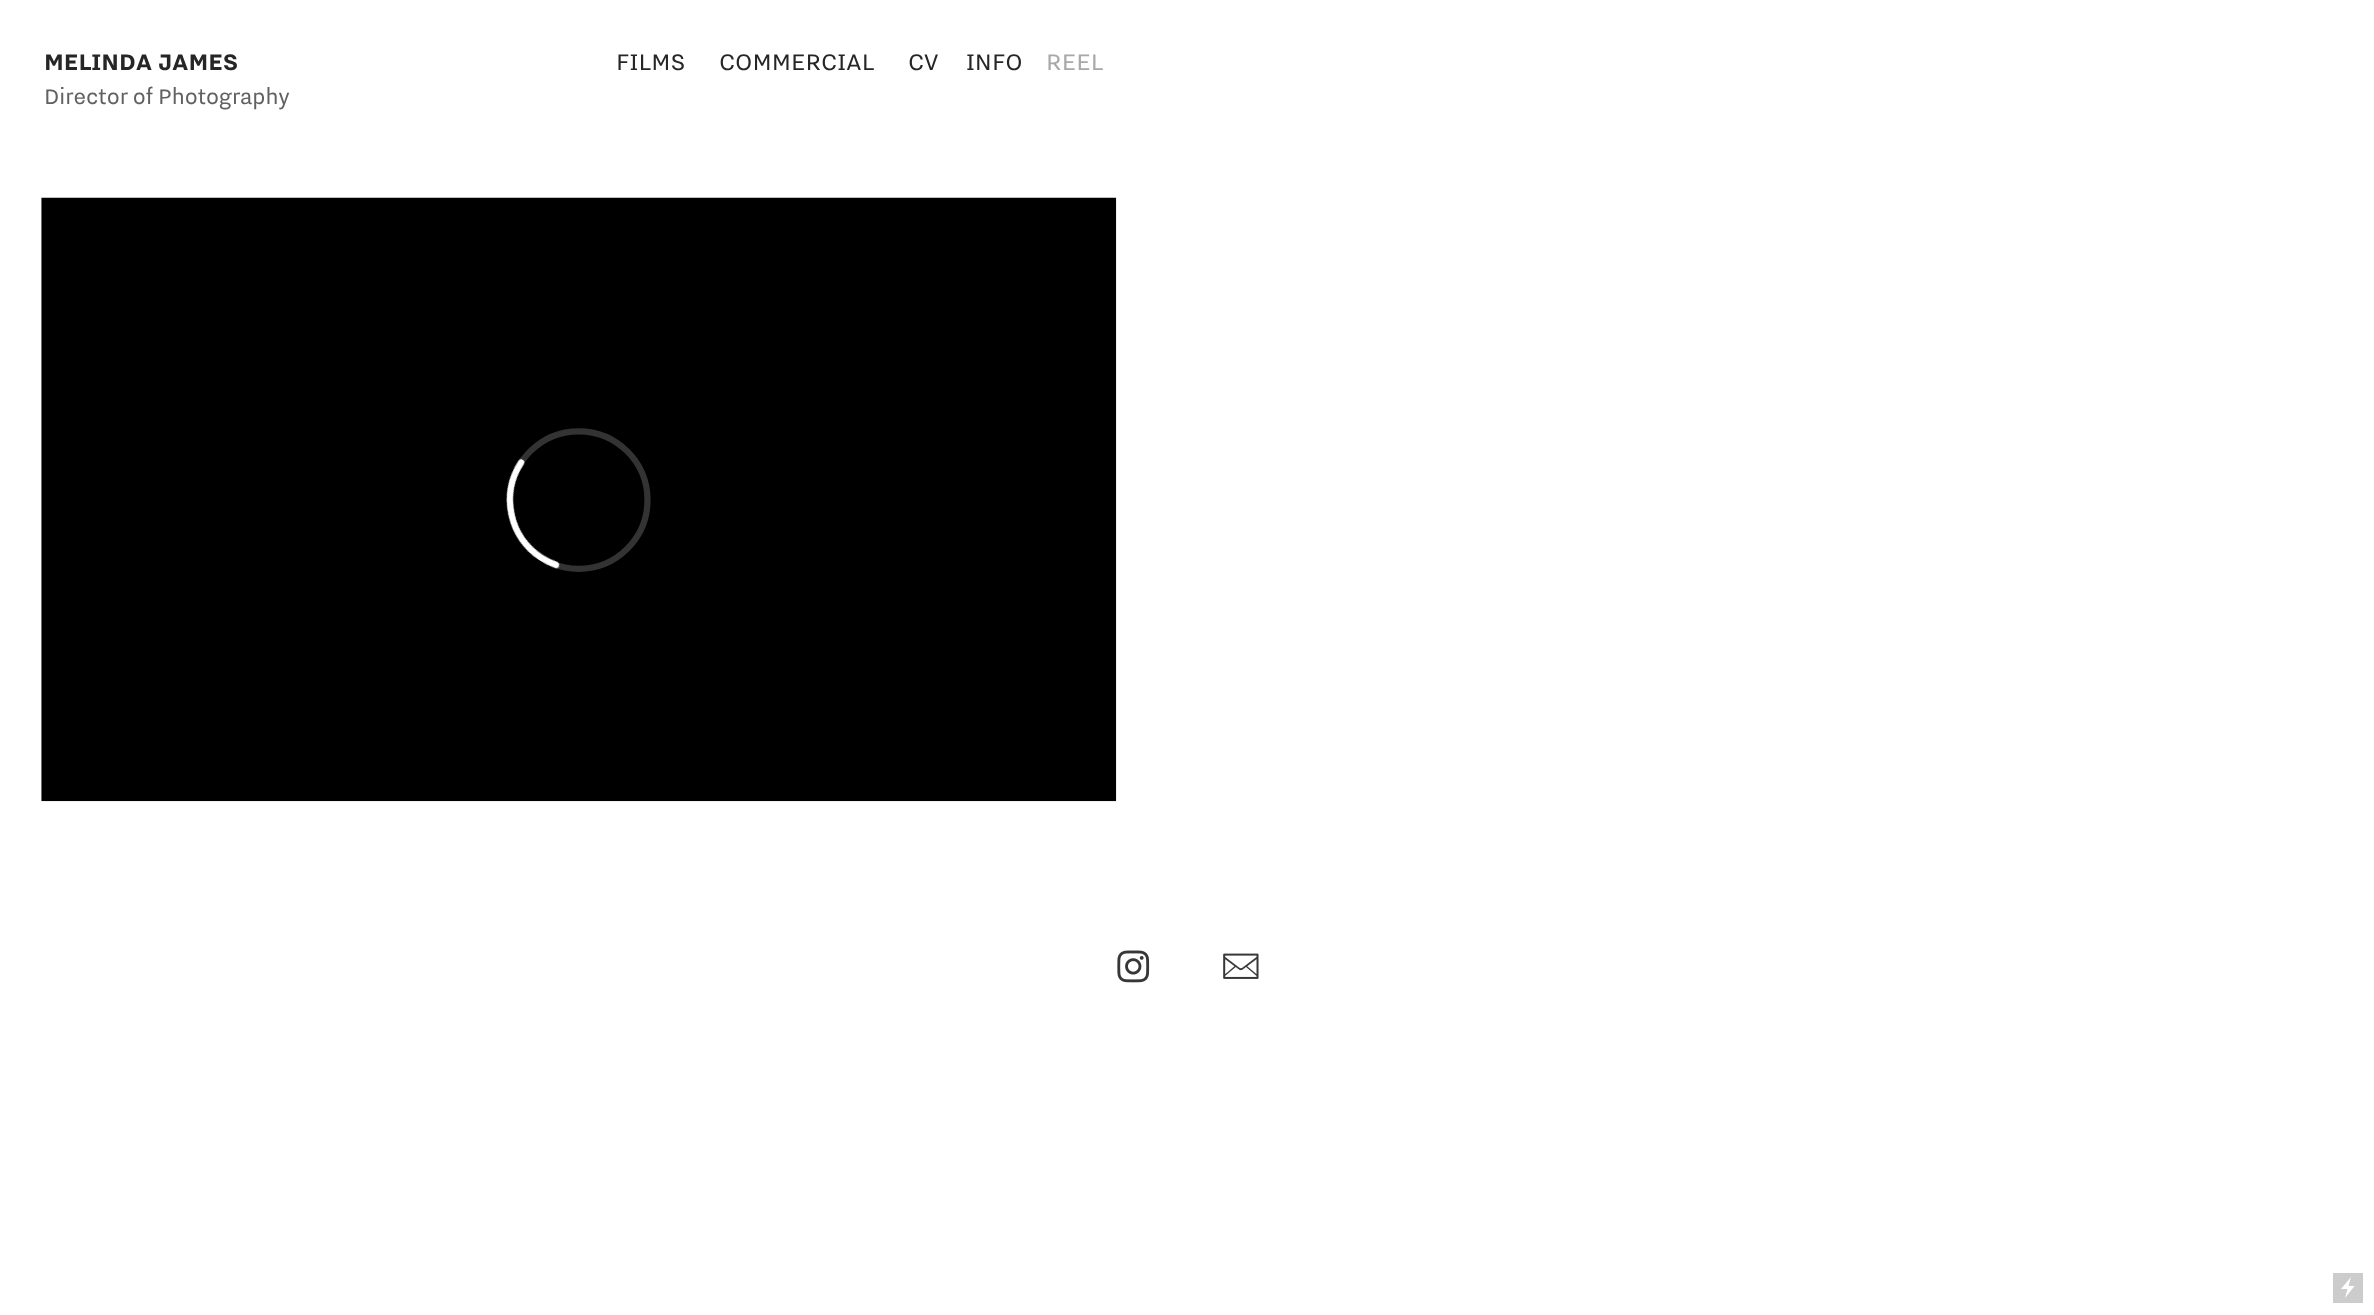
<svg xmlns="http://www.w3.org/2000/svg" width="2374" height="1315">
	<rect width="100%" height="100%" fill="#FFFFFF" />
	<text x="44" y="70" font-family="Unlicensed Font" font-size="28.5" font-weight="700" fill="#262626">MELINDA JAMES</text>
	<text x="44" y="104" font-family="Unlicensed Font" font-size="26.5" fill="#616161">Director of Photography</text>
	<g font-family="Unlicensed Font" font-size="28.5" fill="#262626">
		<text x="616" y="70">FILMS</text>
		<text x="719" y="70">COMMERCIAL</text>
		<text x="908" y="70">CV</text>
		<text x="966" y="70">INFO</text>
	</g>
	<text x="1046" y="70" font-family="Unlicensed Font" font-size="28.5" fill="#A8A8A8">REEL</text>
	<image x="41" y="197" width="1076" height="605" href="assets/img1.png" />
	<image x="1117" y="950" width="33" height="33" href="assets/img2.png" />
	<image x="1223" y="953" width="36" height="26" href="assets/img3.png" />
	<rect x="2333" y="1273" width="30" height="30" fill="#CCCCCC" />
	<path d="M2354.5 1286H2348.5L2351 1277L2341 1289H2347.5L2345 1298Z" fill="#FFFFFF" />
</svg>
